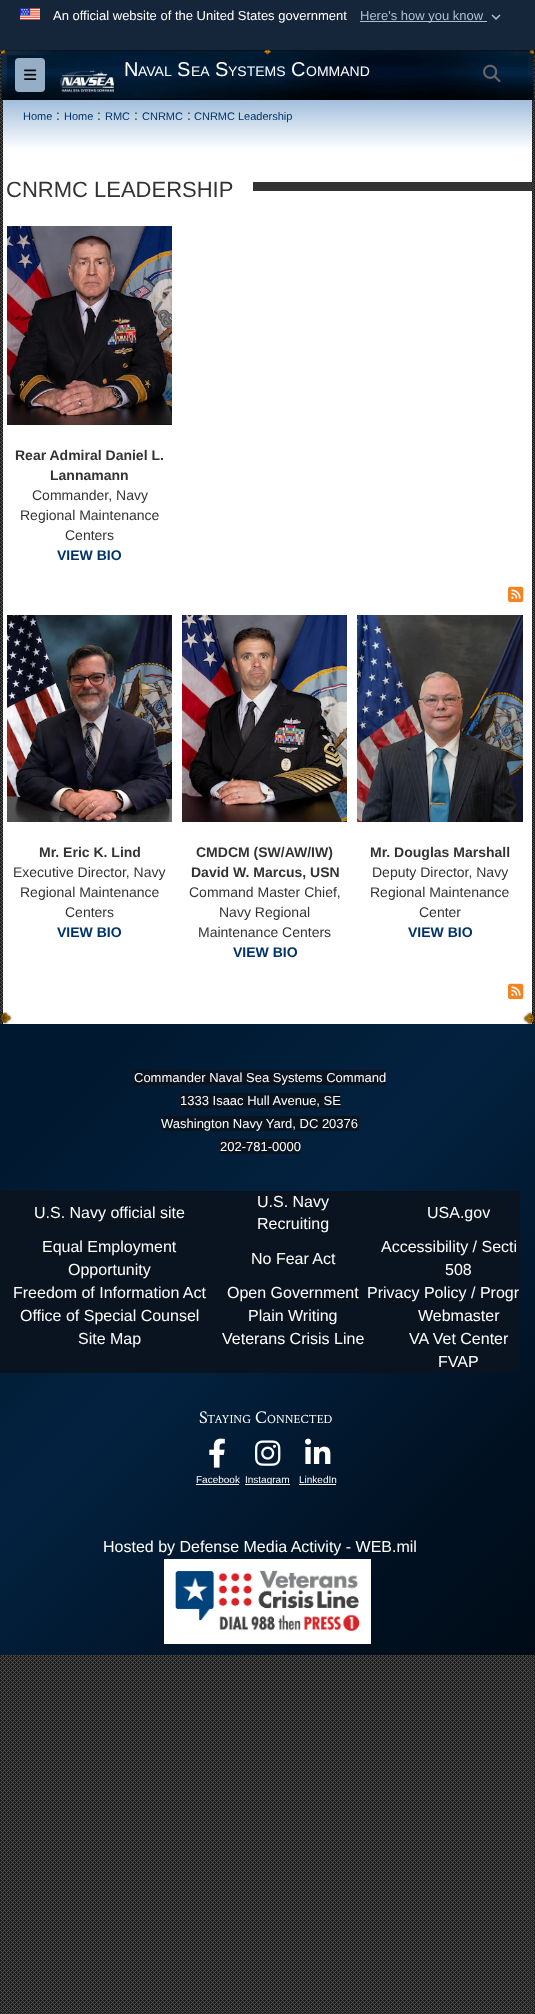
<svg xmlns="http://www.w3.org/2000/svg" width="535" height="2014">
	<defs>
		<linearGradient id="g1" gradientUnits="userSpaceOnUse" x1="268" y1="100" x2="268" y2="150"><stop offset="0" stop-color="#A1BEDC" /><stop offset="1" stop-color="#FFFFFF" /></linearGradient>
		<linearGradient id="g2" gradientUnits="userSpaceOnUse" x1="-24" y1="1048" x2="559" y2="1631"><stop offset="0" stop-color="#011930" /><stop offset="0.13" stop-color="#011930" /><stop offset="0.43" stop-color="#032240" /><stop offset="0.79" stop-color="#011122" /><stop offset="1" stop-color="#000B16" /></linearGradient>
	</defs>
	<rect width="100%" height="100%" fill="#FFFFFF" />
	<image x="0" y="50" width="535" height="1964" href="assets/img1.png" />
	<rect x="0" y="0" width="535" height="50" fill="#15263B" />
	<image x="20" y="8" width="20" height="12" href="assets/img2.png" />
	<text x="53" y="20" font-family="Liberation Sans" font-size="13" fill="#FFFFFF">An official website of the United States government</text>
	<rect x="360" y="21" width="127" height="1" fill="#AEBFD4" />
	<text x="360" y="20" font-family="Liberation Sans" font-size="13" fill="#AEBFD4">Here's how you know</text>
	<image x="491" y="14" width="10" height="6" href="assets/img3.png" />
	<image x="0" y="50" width="535" height="50" href="assets/img4.png" />
	<rect x="15" y="58" width="30" height="34" rx="4" fill="#95ADC5" />
	<image x="24" y="69" width="13" height="11" href="assets/img5.png" />
	<image x="60" y="70" width="54" height="23" href="assets/img6.png" />
	<text x="124" y="76" font-family="Liberation Sans" font-size="20" fill="#FFFFFF">N</text>
	<text x="138" y="76" font-family="Liberation Sans" font-size="14" fill="#FFFFFF">AVAL</text>
	<text x="177" y="76" font-family="Liberation Sans" font-size="20" fill="#FFFFFF">S</text>
	<text x="191" y="76" font-family="Liberation Sans" font-size="14" fill="#FFFFFF">EA</text>
	<text x="215" y="76" font-family="Liberation Sans" font-size="20" fill="#FFFFFF">S</text>
	<text x="228" y="76" font-family="Liberation Sans" font-size="14" fill="#FFFFFF">YSTEMS</text>
	<text x="291" y="76" font-family="Liberation Sans" font-size="20" fill="#FFFFFF">C</text>
	<text x="306" y="76" font-family="Liberation Sans" font-size="14" fill="#FFFFFF">OMMAND</text>
	<image x="483" y="64" width="18" height="19" href="assets/img7.png" />
	<rect x="3" y="150" width="529" height="874" fill="#FFFFFF" />
	<rect x="3" y="100" width="529" height="50" fill="url(#g1)" />
	<text x="23" y="120" font-family="Liberation Sans" font-size="11" fill="#003366">Home</text>
	<text x="56" y="120" font-family="Liberation Sans" font-size="14" fill="#333333">:</text>
	<text x="64" y="120" font-family="Liberation Sans" font-size="11" fill="#003366">Home</text>
	<text x="97" y="120" font-family="Liberation Sans" font-size="14" fill="#333333">:</text>
	<text x="105" y="120" font-family="Liberation Sans" font-size="11" fill="#003366">RMC</text>
	<text x="134" y="120" font-family="Liberation Sans" font-size="14" fill="#333333">:</text>
	<text x="142" y="120" font-family="Liberation Sans" font-size="11" fill="#003366">CNRMC</text>
	<text x="187" y="120" font-family="Liberation Sans" font-size="14" fill="#333333">:</text>
	<text x="194" y="120" font-family="Liberation Sans" font-size="11" fill="#003366">CNRMC Leadership</text>
	<text x="6" y="197" font-family="Liberation Sans" font-size="22" fill="#333333">CNRMC LEADERSHIP</text>
	<rect x="253" y="182" width="280" height="9" fill="#333333" />
	<image x="7" y="226" width="165" height="199" href="assets/img8.png" />
	<g font-family="Liberation Sans" font-size="14" font-weight="700" fill="#333333">
		<text x="15" y="460">Rear Admiral Daniel L.</text>
		<text x="50" y="480">Lannamann</text>
	</g>
	<g font-family="Liberation Sans" font-size="14" fill="#333333">
		<text x="32" y="500">Commander, Navy</text>
		<text x="20" y="520">Regional Maintenance</text>
		<text x="65" y="540">Centers</text>
	</g>
	<text x="57" y="560" font-family="Liberation Sans" font-size="14" font-weight="700" fill="#003366">VIEW BIO</text>
	<image x="508" y="586" width="16" height="17" href="assets/img9.png" />
	<image x="7" y="615" width="165" height="207" href="assets/img10.png" />
	<text x="39" y="857" font-family="Liberation Sans" font-size="14" font-weight="700" fill="#333333">Mr. Eric K. Lind</text>
	<g font-family="Liberation Sans" font-size="14" fill="#333333">
		<text x="13" y="877">Executive Director, Navy</text>
		<text x="20" y="897">Regional Maintenance</text>
		<text x="65" y="917">Centers</text>
	</g>
	<text x="57" y="937" font-family="Liberation Sans" font-size="14" font-weight="700" fill="#003366">VIEW BIO</text>
	<image x="182" y="615" width="165" height="207" href="assets/img11.png" />
	<g font-family="Liberation Sans" font-size="14" font-weight="700" fill="#333333">
		<text x="196" y="857">CMDCM (SW/AW/IW)</text>
		<text x="191" y="877">David W. Marcus, USN</text>
	</g>
	<g font-family="Liberation Sans" font-size="14" fill="#333333">
		<text x="189" y="897">Command Master Chief,</text>
		<text x="219" y="917">Navy Regional</text>
		<text x="198" y="937">Maintenance Centers</text>
	</g>
	<text x="233" y="957" font-family="Liberation Sans" font-size="14" font-weight="700" fill="#003366">VIEW BIO</text>
	<image x="357" y="615" width="166" height="207" href="assets/img12.png" />
	<text x="370" y="857" font-family="Liberation Sans" font-size="14" font-weight="700" fill="#333333">Mr. Douglas Marshall</text>
	<g font-family="Liberation Sans" font-size="14" fill="#333333">
		<text x="372" y="877">Deputy Director, Navy</text>
		<text x="370" y="897">Regional Maintenance</text>
		<text x="419" y="917">Center</text>
	</g>
	<text x="408" y="937" font-family="Liberation Sans" font-size="14" font-weight="700" fill="#003366">VIEW BIO</text>
	<image x="508" y="983" width="16" height="17" href="assets/img9.png" />
	<image x="0" y="1012" width="535" height="12" href="assets/img13.png" />
	<rect x="0" y="1024" width="535" height="631" fill="url(#g2)" />
	<rect x="134" y="1070" width="252" height="15" fill="#0A1421" />
	<text x="134" y="1082" font-family="Liberation Sans" font-size="13" fill="#FFFFFF">Commander Naval Sea Systems Command</text>
	<rect x="180" y="1093" width="160" height="15" fill="#0A1421" />
	<text x="180" y="1105" font-family="Liberation Sans" font-size="13" fill="#FFFFFF">1333 Isaac Hull Avenue, SE</text>
	<rect x="161" y="1116" width="198" height="15" fill="#0A1421" />
	<text x="161" y="1128" font-family="Liberation Sans" font-size="13" fill="#FFFFFF">Washington Navy Yard, DC 20376</text>
	<rect x="220" y="1139" width="80" height="15" fill="#0A1421" />
	<text x="220" y="1151" font-family="Liberation Sans" font-size="13" fill="#FFFFFF">202-781-0000</text>
	<rect x="0" y="1191" width="520" height="45" fill="#0A1421" />
	<g font-family="Liberation Sans" font-size="16" fill="#FFFFFF">
		<text x="34" y="1218">U.S. Navy official site</text>
		<text x="257" y="1207">U.S. Navy</text>
		<text x="257" y="1229">Recruiting</text>
		<text x="427" y="1218">USA.gov</text>
	</g>
	<rect x="0" y="1236" width="520" height="46" fill="#0A1421" />
	<g font-family="Liberation Sans" font-size="16" fill="#FFFFFF">
		<text x="42" y="1252">Equal Employment</text>
		<text x="68" y="1275">Opportunity</text>
		<text x="251" y="1264">No Fear Act</text>
		<text x="381" y="1252">Accessibility / Secti</text>
		<text x="445" y="1275">508</text>
	</g>
	<rect x="0" y="1282" width="520" height="23" fill="#0A1421" />
	<g font-family="Liberation Sans" font-size="16" fill="#FFFFFF">
		<text x="13" y="1298">Freedom of Information Act</text>
		<text x="227" y="1298">Open Government</text>
		<text x="367" y="1298">Privacy Policy / Progr</text>
	</g>
	<rect x="0" y="1305" width="520" height="23" fill="#0A1421" />
	<g font-family="Liberation Sans" font-size="16" fill="#FFFFFF">
		<text x="20" y="1321">Office of Special Counsel</text>
		<text x="248" y="1321">Plain Writing</text>
		<text x="418" y="1321">Webmaster</text>
	</g>
	<rect x="0" y="1328" width="520" height="23" fill="#0A1421" />
	<g font-family="Liberation Sans" font-size="16" fill="#FFFFFF">
		<text x="78" y="1344">Site Map</text>
		<text x="222" y="1344">Veterans Crisis Line</text>
		<text x="409" y="1344">VA Vet Center</text>
	</g>
	<rect x="0" y="1351" width="520" height="22" fill="#0A1421" />
	<text x="438" y="1367" font-family="Liberation Sans" font-size="16" fill="#FFFFFF">FVAP</text>
	<text x="199" y="1423" font-family="Crimson Text" font-size="18" fill="#FFFFFF">S</text>
	<text x="207" y="1423" font-family="Crimson Text" font-size="12.5" fill="#FFFFFF">TAYING</text>
	<text x="255" y="1423" font-family="Crimson Text" font-size="18" fill="#FFFFFF">C</text>
	<text x="267" y="1423" font-family="Crimson Text" font-size="12.5" fill="#FFFFFF">ONNECTED</text>
	<image x="209" y="1438" width="16" height="30" href="assets/img14.png" />
	<text x="196" y="1483" font-family="Liberation Sans" font-size="10" fill="#FFFFFF">Facebook</text>
	<rect x="196" y="1484" width="43" height="1" fill="#FFFFFF" />
	<image x="255" y="1440" width="26" height="26" href="assets/img15.png" />
	<rect x="245" y="1484" width="45" height="1" fill="#FFFFFF" />
	<text x="245" y="1483" font-family="Liberation Sans" font-size="10" fill="#FFFFFF">Instagram</text>
	<image x="305" y="1438" width="26" height="26" href="assets/img16.png" />
	<text x="299" y="1483" font-family="Liberation Sans" font-size="10" fill="#FFFFFF">LinkedIn</text>
	<rect x="299" y="1484" width="37" height="1" fill="#FFFFFF" />
	<text x="103" y="1552" font-family="Liberation Sans" font-size="16" fill="#FFFFFF">Hosted by Defense Media Activity - WEB.mil</text>
	<image x="164" y="1559" width="207" height="85" href="assets/img17.png" />
</svg>
